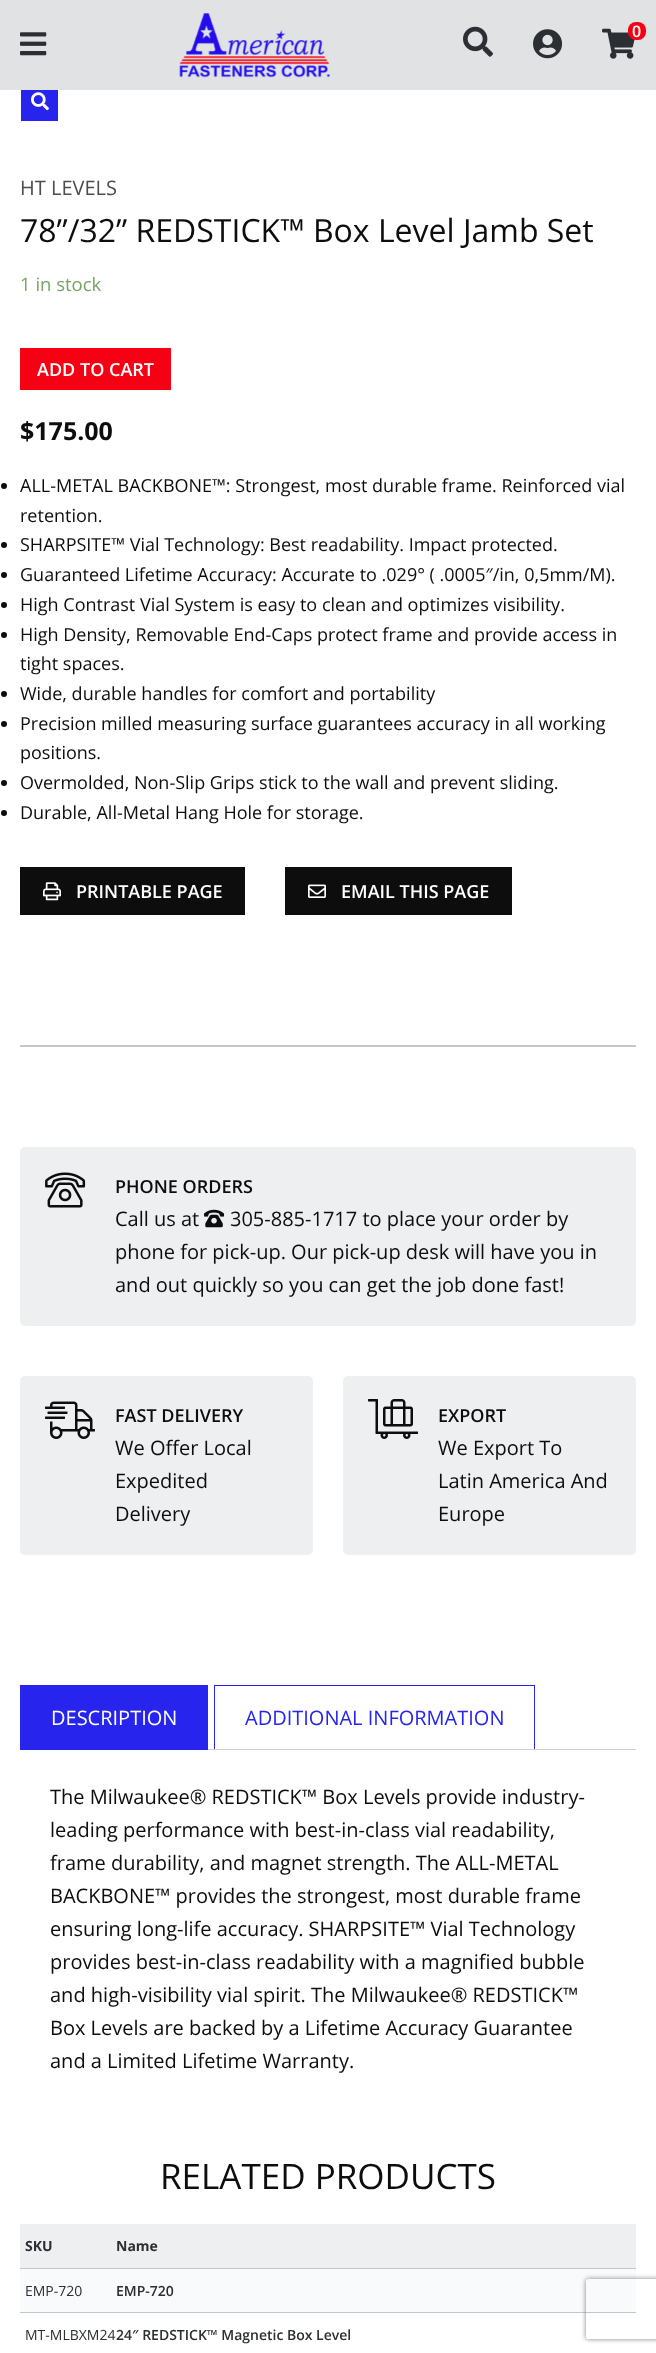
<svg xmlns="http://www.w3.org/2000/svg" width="656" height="2353">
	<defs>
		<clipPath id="clip1"><path d="M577 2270H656V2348H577ZM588 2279H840C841 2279 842 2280 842 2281V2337C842 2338 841 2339 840 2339H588C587 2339 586 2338 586 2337V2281C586 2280 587 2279 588 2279Z" clip-rule="evenodd" /></clipPath>
	</defs>
	<rect width="100%" height="100%" fill="#FFFFFF" />
	<rect x="0" y="0" width="656" height="90" fill="#E0E2E3" />
	<image x="20" y="32" width="27" height="24" href="assets/img1.png" />
	<image x="179" y="13" width="151" height="65" href="assets/img2.png" />
	<image x="463" y="26" width="30" height="31" href="assets/img3.png" />
	<image x="533" y="29" width="30" height="30" href="assets/img4.png" />
	<image x="602" y="28" width="33" height="31" href="assets/img5.png" />
	<rect x="628" y="22" width="18" height="18" rx="8" fill="#F60013" />
	<text x="632" y="37" font-family="Open Sans" font-size="16" font-weight="600" fill="#FFFFFF">0</text>
	<rect x="20" y="1045" width="616" height="2" fill="#C6C6C6" />
	<rect x="21" y="90" width="37" height="31" fill="#2624ED" />
	<image x="31" y="92" width="18" height="19" href="assets/img6.png" />
	<text x="20" y="195" font-family="Open Sans" font-size="20" fill="#4D4D4D">HT LEVELS</text>
	<text x="20" y="242" font-family="Open Sans" font-size="32" fill="#0D0D0D">78”/32” REDSTICK™ Box Level Jamb Set</text>
	<text x="20" y="291" font-family="Open Sans" font-size="18.5" fill="#77A464">1 in stock</text>
	<rect x="20" y="348" width="151" height="42" fill="#F60013" />
	<text x="37" y="376" font-family="Open Sans" font-size="18" font-weight="600" fill="#FFFFFF">ADD TO CART</text>
	<text x="20" y="440" font-family="Open Sans" font-size="25" font-weight="700" fill="#0D0D0D">$175.00</text>
	<circle cx="4" cy="486" r="3" fill="#0D0D0D" />
	<g font-family="Open Sans" font-size="18" fill="#0D0D0D">
		<text x="20" y="492">ALL-METAL BACKBONE™: Strongest, most durable frame. Reinforced vial</text>
		<text x="20" y="522">retention.</text>
	</g>
	<circle cx="4" cy="545" r="3" fill="#0D0D0D" />
	<text x="20" y="551" font-family="Open Sans" font-size="18" fill="#0D0D0D">SHARPSITE™ Vial Technology: Best readability. Impact protected.</text>
	<circle cx="4" cy="575" r="3" fill="#0D0D0D" />
	<text x="20" y="581" font-family="Open Sans" font-size="18" fill="#0D0D0D">Guaranteed Lifetime Accuracy: Accurate to .029° ( .0005″/in, 0,5mm/M).</text>
	<circle cx="4" cy="605" r="3" fill="#0D0D0D" />
	<text x="20" y="611" font-family="Open Sans" font-size="18" fill="#0D0D0D">High Contrast Vial System is easy to clean and optimizes visibility.</text>
	<circle cx="4" cy="635" r="3" fill="#0D0D0D" />
	<g font-family="Open Sans" font-size="18" fill="#0D0D0D">
		<text x="20" y="641">High Density, Removable End-Caps protect frame and provide access in</text>
		<text x="20" y="670">tight spaces.</text>
	</g>
	<circle cx="4" cy="694" r="3" fill="#0D0D0D" />
	<text x="20" y="700" font-family="Open Sans" font-size="18" fill="#0D0D0D">Wide, durable handles for comfort and portability</text>
	<circle cx="4" cy="724" r="3" fill="#0D0D0D" />
	<g font-family="Open Sans" font-size="18" fill="#0D0D0D">
		<text x="20" y="730">Precision milled measuring surface guarantees accuracy in all working</text>
		<text x="20" y="759">positions.</text>
	</g>
	<circle cx="4" cy="783" r="3" fill="#0D0D0D" />
	<text x="20" y="789" font-family="Open Sans" font-size="18" fill="#0D0D0D">Overmolded, Non-Slip Grips stick to the wall and prevent sliding.</text>
	<circle cx="4" cy="813" r="3" fill="#0D0D0D" />
	<text x="20" y="819" font-family="Open Sans" font-size="18" fill="#0D0D0D">Durable, All-Metal Hang Hole for storage.</text>
	<rect x="20" y="867" width="225" height="48" fill="#0D0D0D" />
	<image x="43" y="882" width="18" height="19" href="assets/img7.png" />
	<text x="76" y="898" font-family="Open Sans" font-size="18" font-weight="600" fill="#FFFFFF">PRINTABLE PAGE</text>
	<rect x="285" y="867" width="227" height="48" fill="#0D0D0D" />
	<image x="308" y="884" width="18" height="14" href="assets/img8.png" />
	<text x="341" y="898" font-family="Open Sans" font-size="18" font-weight="600" fill="#FFFFFF">EMAIL THIS PAGE</text>
	<rect x="20" y="1147" width="616" height="179" rx="5" fill="#EEEFF0" />
	<image x="45" y="1172" width="41" height="36" href="assets/img9.png" />
	<text x="115" y="1193" font-family="Open Sans" font-size="18" font-weight="600" fill="#0D0D0D">PHONE ORDERS</text>
	<text x="115" y="1226" font-family="Open Sans" font-size="20" fill="#0D0D0D">Call us at</text>
	<image x="204" y="1209" width="21" height="19" href="assets/img10.png" />
	<g font-family="Open Sans" font-size="20" fill="#0D0D0D">
		<text x="230" y="1226">305-885-1717 to place your order by</text>
		<text x="115" y="1259">phone for pick-up. Our pick-up desk will have you in</text>
		<text x="115" y="1292">and out quickly so you can get the job done fast!</text>
	</g>
	<rect x="20" y="1376" width="293" height="179" rx="5" fill="#EEEFF0" />
	<image x="45" y="1401" width="50" height="38" href="assets/img11.png" />
	<text x="115" y="1422" font-family="Open Sans" font-size="18" font-weight="600" fill="#0D0D0D">FAST DELIVERY</text>
	<g font-family="Open Sans" font-size="20" fill="#0D0D0D">
		<text x="115" y="1455">We Offer Local</text>
		<text x="115" y="1488">Expedited</text>
		<text x="115" y="1521">Delivery</text>
	</g>
	<rect x="343" y="1376" width="293" height="179" rx="5" fill="#EEEFF0" />
	<image x="368" y="1399" width="50" height="40" href="assets/img12.png" />
	<text x="438" y="1422" font-family="Open Sans" font-size="18" font-weight="600" fill="#0D0D0D">EXPORT</text>
	<g font-family="Open Sans" font-size="20" fill="#0D0D0D">
		<text x="438" y="1455">We Export To</text>
		<text x="438" y="1488">Latin America And</text>
		<text x="438" y="1521">Europe</text>
	</g>
	<rect x="20" y="1685" width="188" height="65" fill="#2624ED" />
	<text x="51" y="1725" font-family="Open Sans" font-size="20" fill="#FFFFFF">DESCRIPTION</text>
	<rect x="214.5" y="1685.5" width="320" height="64" fill="none" stroke="#2624ED" />
	<text x="245" y="1725" font-family="Open Sans" font-size="20" fill="#2624ED">ADDITIONAL INFORMATION</text>
	<rect x="208" y="1749" width="428" height="1" fill="#D3CED2" />
	<g font-family="Open Sans" font-size="20" fill="#0D0D0D">
		<text x="50" y="1804">The Milwaukee® REDSTICK™ Box Levels provide industry-</text>
		<text x="50" y="1837">leading performance with best-in-class vial readability,</text>
		<text x="50" y="1870">frame durability, and magnet strength. The ALL-METAL</text>
		<text x="50" y="1903">BACKBONE™ provides the strongest, most durable frame</text>
		<text x="50" y="1936">ensuring long-life accuracy. SHARPSITE™ Vial Technology</text>
		<text x="50" y="1969">provides best-in-class readability with a magnified bubble</text>
		<text x="50" y="2002">and high-visibility vial spirit. The Milwaukee® REDSTICK™</text>
		<text x="50" y="2035">Box Levels are backed by a Lifetime Accuracy Guarantee</text>
		<text x="50" y="2068">and a Limited Lifetime Warranty.</text>
	</g>
	<text x="160" y="2189" font-family="Open Sans" font-size="35" fill="#0D0D0D">RELATED PRODUCTS</text>
	<rect x="20" y="2224" width="616" height="44" fill="#EEEFF0" />
	<rect x="20" y="2268" width="616" height="1" fill="#C6C6C6" />
	<g font-family="Open Sans" font-size="14" font-weight="700" fill="#2B2E33">
		<text x="25" y="2251">SKU</text>
		<text x="116" y="2251">Name</text>
	</g>
	<rect x="20" y="2269" width="616" height="43" fill="#F9FAFB" />
	<rect x="20" y="2312" width="616" height="1" fill="#C6C6C6" />
	<text x="25" y="2296" font-family="Open Sans" font-size="14" fill="#2B2E33">EMP-720</text>
	<text x="116" y="2296" font-family="Open Sans" font-size="14" font-weight="600" fill="#2B2E33">EMP-720</text>
	<text x="25" y="2340" font-family="Open Sans" font-size="14" fill="#2B2E33">MT-MLBXM24</text>
	<text x="116" y="2340" font-family="Open Sans" font-size="14" font-weight="600" fill="#2B2E33">24″ REDSTICK™ Magnetic Box Level</text>
	<g clip-path="url(#clip1)">
		<rect x="586" y="2279" width="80" height="60" rx="2" fill="#808080" filter="blur(2.5px)" />
	</g>
</svg>
